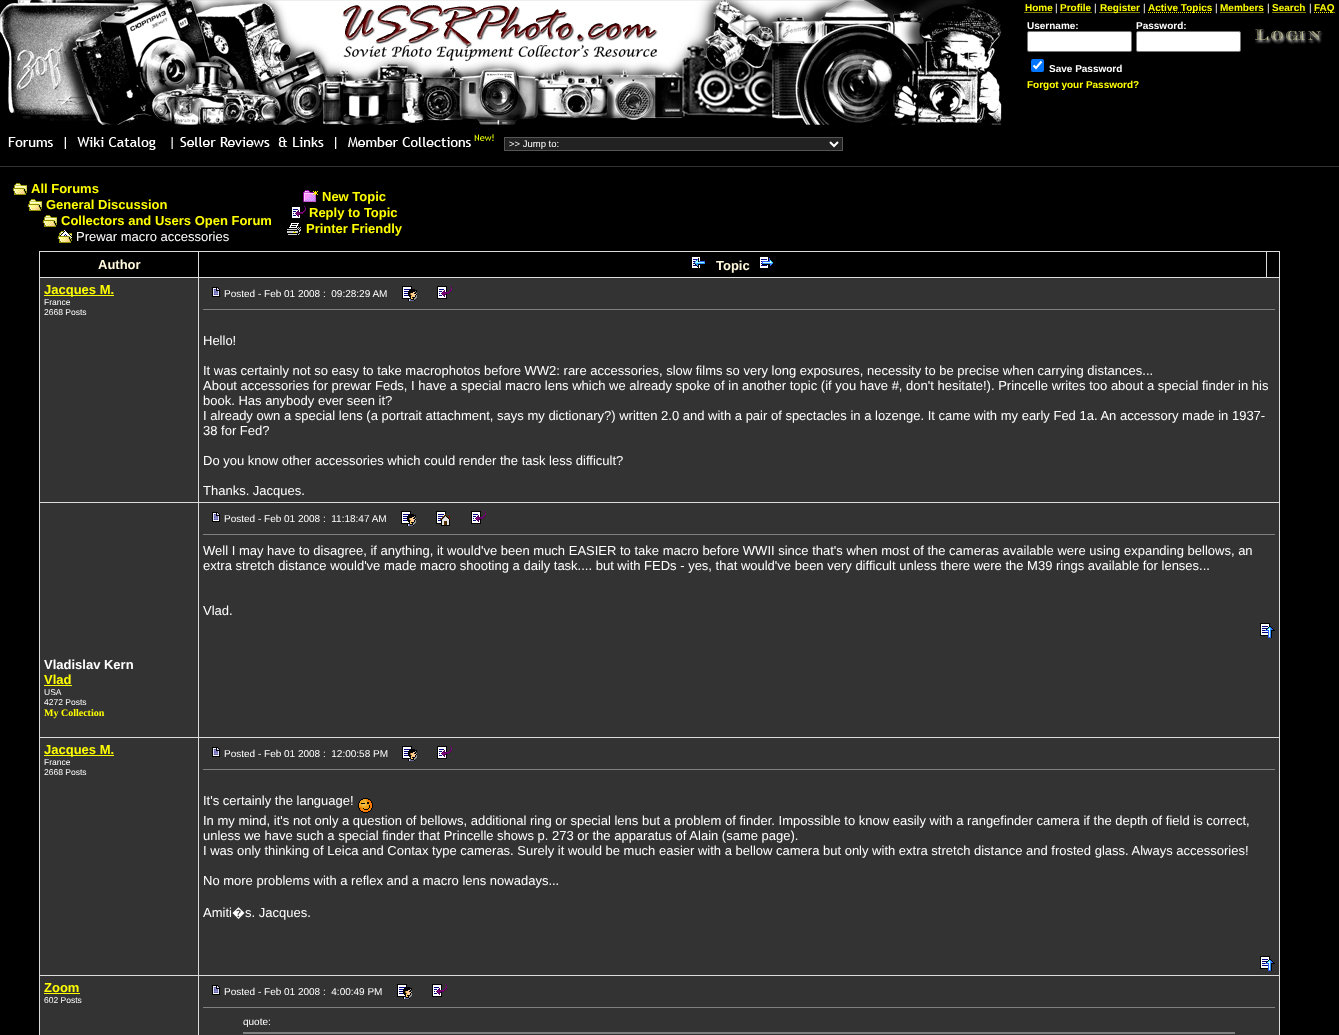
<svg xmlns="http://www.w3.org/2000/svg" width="1339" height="1035">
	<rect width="100%" height="100%" fill="#000000" />
	<text x="1025" y="11" font-family="Liberation Sans" font-size="10" font-weight="700" fill="#FFFF00">Home</text>
	<path d="M1024.5 12.5H1052.5" fill="none" stroke="#FFFF00" stroke-dasharray="1 1" />
	<text x="1055" y="11" font-family="Liberation Sans" font-size="10" fill="#FFFFFF">|</text>
	<text x="1060" y="11" font-family="Liberation Sans" font-size="10" font-weight="700" fill="#FFFF00">Profile</text>
	<path d="M1060.5 12.5H1091.5" fill="none" stroke="#FFFF00" stroke-dasharray="1 1" />
	<text x="1094" y="11" font-family="Liberation Sans" font-size="10" fill="#FFFFFF">|</text>
	<path d="M1099.5 12.5H1140" fill="none" stroke="#FFFF00" stroke-dasharray="1 1" />
	<text x="1100" y="11" font-family="Liberation Sans" font-size="10" font-weight="700" fill="#FFFF00">Register</text>
	<text x="1143" y="11" font-family="Liberation Sans" font-size="10" fill="#FFFFFF">|</text>
	<path d="M1148 12.5H1212" fill="none" stroke="#FFFF00" stroke-dasharray="1 1" />
	<text x="1148" y="11" font-family="Liberation Sans" font-size="10" font-weight="700" fill="#FFFF00">Active Topics</text>
	<text x="1215" y="11" font-family="Liberation Sans" font-size="10" fill="#FFFFFF">|</text>
	<text x="1220" y="11" font-family="Liberation Sans" font-size="10" font-weight="700" fill="#FFFF00">Members</text>
	<path d="M1220.5 12.5H1264" fill="none" stroke="#FFFF00" stroke-dasharray="1 1" />
	<text x="1267" y="11" font-family="Liberation Sans" font-size="10" fill="#FFFFFF">|</text>
	<text x="1272" y="11" font-family="Liberation Sans" font-size="10" font-weight="700" fill="#FFFF00">Search</text>
	<path d="M1272.5 12.5H1306" fill="none" stroke="#FFFF00" stroke-dasharray="1 1" />
	<text x="1309" y="11" font-family="Liberation Sans" font-size="10" fill="#FFFFFF">|</text>
	<path d="M1314 12.5H1334.5" fill="none" stroke="#FFFF00" stroke-dasharray="1 1" />
	<text x="1314" y="11" font-family="Liberation Sans" font-size="10" font-weight="700" fill="#FFFF00">FAQ</text>
	<text x="1027" y="29" font-family="Liberation Sans" font-size="10" font-weight="700" fill="#FFFFFF">Username:</text>
	<rect x="1027.5" y="31.5" width="104" height="20" rx="1.5" fill="#FFFFFF" stroke="#767676" />
	<text x="1136" y="29" font-family="Liberation Sans" font-size="10" font-weight="700" fill="#FFFFFF">Password:</text>
	<rect x="1136.5" y="31.5" width="104" height="20" rx="1.5" fill="#FFFFFF" stroke="#767676" />
	<image x="1255" y="29" width="68" height="16" href="assets/img1.png" />
	<rect x="1031" y="59" width="13" height="13" rx="2" fill="#0075FF" />
	<path d="M1033.5 65.5L1036 68L1041.5 61.5" fill="none" stroke="#FFFFFF" stroke-width="2.1" />
	<text x="1049" y="72" font-family="Liberation Sans" font-size="10" font-weight="700" fill="#FFFFFF">Save Password</text>
	<text x="1027" y="88" font-family="Liberation Sans" font-size="10" font-weight="700" fill="#FFFF00">Forgot your Password?</text>
	<image x="0" y="0" width="1002" height="125" href="assets/img2.png" />
	<image x="8" y="137" width="57" height="12" href="assets/img3.png" />
	<image x="65" y="137" width="108" height="13" href="assets/img4.png" />
	<image x="180" y="137" width="144" height="10" href="assets/img5.png" />
	<image x="335" y="134" width="159" height="15" href="assets/img6.png" />
	<rect x="504.5" y="137.5" width="338" height="13" fill="#222222" stroke="#555555" />
	<path d="M830 142L834 146L838 142" fill="none" stroke="#FFFFFF" stroke-width="2" />
	<text x="509" y="147" font-family="Liberation Sans" font-size="9.5" fill="#FFFFFF">&gt;&gt; Jump to:</text>
	<rect x="0" y="166" width="1339" height="1" fill="#333333" />
	<image x="13" y="183" width="14" height="12" href="assets/img7.png" />
	<text x="31" y="193" font-family="Liberation Sans" font-size="13" font-weight="700" fill="#FFFF00">All Forums</text>
	<image x="28" y="199" width="14" height="12" href="assets/img7.png" />
	<text x="46" y="209" font-family="Liberation Sans" font-size="13" font-weight="700" fill="#FFFF00">General Discussion</text>
	<rect x="27" y="206" width="1" height="1" fill="#432600" />
	<image x="43" y="215" width="14" height="12" href="assets/img7.png" />
	<text x="61" y="225" font-family="Liberation Sans" font-size="13" font-weight="700" fill="#FFFF00">Collectors and Users Open Forum</text>
	<rect x="42" y="222" width="1" height="1" fill="#432600" />
	<image x="58" y="230" width="14" height="13" href="assets/img8.png" />
	<text x="76" y="241" font-family="Liberation Sans" font-size="13" fill="#FFFFFF">Prewar macro accessories</text>
	<rect x="57" y="238" width="1" height="1" fill="#432600" />
	<image x="303" y="190" width="15" height="12" href="assets/img9.png" />
	<text x="322" y="201" font-family="Liberation Sans" font-size="13" font-weight="700" fill="#FFFF00">New Topic</text>
	<image x="292" y="206" width="14" height="12" href="assets/img10.png" />
	<text x="309" y="217" font-family="Liberation Sans" font-size="13" font-weight="700" fill="#FFFF00">Reply to Topic</text>
	<image x="287" y="223" width="14" height="12" href="assets/img11.png" />
	<text x="306" y="233" font-family="Liberation Sans" font-size="13" font-weight="700" fill="#FFFF00">Printer Friendly</text>
	<rect x="39" y="251" width="1241" height="784" fill="#DCDCDC" />
	<rect x="40" y="252" width="158" height="25" fill="#000000" />
	<text x="98" y="269" font-family="Liberation Sans" font-size="13" font-weight="700" fill="#FFF8DC">Author</text>
	<rect x="199" y="252" width="1067" height="25" fill="#000000" />
	<image x="692" y="257" width="13" height="11" href="assets/img12.png" />
	<text x="716" y="270" font-family="Liberation Sans" font-size="13" font-weight="700" fill="#FFF8DC">Topic</text>
	<image x="760" y="257" width="13" height="11" href="assets/img13.png" />
	<rect x="1267" y="252" width="12" height="25" fill="#000000" />
	<rect x="40" y="278" width="158" height="224" fill="#333333" />
	<rect x="44" y="295" width="70" height="1" fill="#FFFF00" />
	<text x="44" y="294" font-family="Liberation Sans" font-size="13" font-weight="700" fill="#FFFF00">Jacques M.</text>
	<g font-family="Liberation Sans" font-size="8.5" fill="#FFFFFF">
		<text x="44" y="305">France</text>
		<text x="44" y="315">2668 Posts</text>
	</g>
	<rect x="199" y="278" width="1080" height="224" fill="#333333" />
	<image x="212" y="287" width="8" height="10" href="assets/img14.png" />
	<text x="224" y="297" font-family="Liberation Sans" font-size="10" fill="#FFFFFF" xml:space="preserve">Posted - Feb 01 2008 :  09:28:29 AM</text>
	<image x="402" y="286" width="15" height="15" href="assets/img15.png" />
	<image x="437" y="286" width="15" height="13" href="assets/img16.png" />
	<rect x="203" y="309" width="1072" height="1" fill="#808080" />
	<g font-family="Liberation Sans" font-size="13" fill="#FFFFFF">
		<text x="203" y="345">Hello!</text>
		<text x="203" y="375">It was certainly not so easy to take macrophotos before WW2: rare accessories, slow films so very long exposures, necessity to be precise when carrying distances...</text>
		<text x="203" y="390">About accessories for prewar Feds, I have a special macro lens which we already spoke of in another topic (if you have #, don't hesitate!). Princelle writes too about a special finder in his</text>
		<text x="203" y="405">book. Has anybody ever seen it?</text>
		<text x="203" y="420">I already own a special lens (a portrait attachment, says my dictionary?) written 2.0 and with a pair of spectacles in a lozenge. It came with my early Fed 1a. An accessory made in 1937-</text>
		<text x="203" y="435">38 for Fed?</text>
		<text x="203" y="465">Do you know other accessories which could render the task less difficult?</text>
		<text x="203" y="495">Thanks. Jacques.</text>
	</g>
	<rect x="199" y="503" width="1080" height="234" fill="#333333" />
	<image x="212" y="512" width="8" height="10" href="assets/img14.png" />
	<text x="224" y="522" font-family="Liberation Sans" font-size="10" fill="#FFFFFF" xml:space="preserve">Posted - Feb 01 2008 :  11:18:47 AM</text>
	<image x="401" y="511" width="15" height="15" href="assets/img15.png" />
	<image x="436" y="511" width="15" height="15" href="assets/img17.png" />
	<image x="471" y="511" width="15" height="13" href="assets/img16.png" />
	<rect x="203" y="534" width="1072" height="1" fill="#808080" />
	<g font-family="Liberation Sans" font-size="13" fill="#FFFFFF">
		<text x="203" y="555">Well I may have to disagree, if anything, it would've been much EASIER to take macro before WWII since that's when most of the cameras available were using expanding bellows, an</text>
		<text x="203" y="570">extra stretch distance would've made macro shooting a daily task.... but with FEDs - yes, that would've been very difficult unless there were the M39 rings available for lenses...</text>
		<text x="203" y="615">Vlad.</text>
	</g>
	<image x="1260" y="623" width="15" height="15" href="assets/img18.png" />
	<rect x="40" y="503" width="158" height="234" fill="#333333" />
	<text x="44" y="669" font-family="Liberation Sans" font-size="13" font-weight="700" fill="#FFFFFF">Vladislav Kern</text>
	<text x="44" y="684" font-family="Liberation Sans" font-size="13" font-weight="700" fill="#FFFF00">Vlad</text>
	<rect x="44" y="685" width="28" height="1" fill="#FFFF00" />
	<g font-family="Liberation Sans" font-size="8.5" fill="#FFFFFF">
		<text x="44" y="695">USA</text>
		<text x="44" y="705">4272 Posts</text>
	</g>
	<text x="44" y="716" font-family="Liberation Serif" font-size="10" font-weight="700" fill="#FFFF00">My Collection</text>
	<rect x="40" y="738" width="158" height="237" fill="#333333" />
	<rect x="44" y="755" width="70" height="1" fill="#FFFF00" />
	<text x="44" y="754" font-family="Liberation Sans" font-size="13" font-weight="700" fill="#FFFF00">Jacques M.</text>
	<g font-family="Liberation Sans" font-size="8.5" fill="#FFFFFF">
		<text x="44" y="765">France</text>
		<text x="44" y="775">2668 Posts</text>
	</g>
	<rect x="199" y="738" width="1080" height="237" fill="#333333" />
	<image x="212" y="747" width="8" height="10" href="assets/img14.png" />
	<text x="224" y="757" font-family="Liberation Sans" font-size="10" fill="#FFFFFF" xml:space="preserve">Posted - Feb 01 2008 :  12:00:58 PM</text>
	<image x="402" y="746" width="15" height="15" href="assets/img15.png" />
	<image x="437" y="746" width="15" height="13" href="assets/img16.png" />
	<rect x="203" y="769" width="1072" height="1" fill="#808080" />
	<text x="203" y="805" font-family="Liberation Sans" font-size="13" fill="#FFFFFF">It's certainly the language!</text>
	<image x="358" y="798" width="15" height="15" href="assets/img19.png" />
	<g font-family="Liberation Sans" font-size="13" fill="#FFFFFF">
		<text x="203" y="825">In my mind, it's not only a question of bellows, additional ring or special lens but a problem of finder. Impossible to know easily with a rangefinder camera if the depth of field is correct,</text>
		<text x="203" y="840">unless we have such a special finder that Princelle shows p. 273 or the apparatus of Alain (same page).</text>
		<text x="203" y="855">I was only thinking of Leica and Contax type cameras. Surely it would be much easier with a bellow camera but only with extra stretch distance and frosted glass. Always accessories!</text>
		<text x="203" y="885">No more problems with a reflex and a macro lens nowadays...</text>
		<text x="203" y="917">Amiti</text>
	</g>
	<text x="232" y="917" font-family="Noto Sans" font-size="13" fill="#FFFFFF">�</text>
	<text x="245" y="917" font-family="Liberation Sans" font-size="13" fill="#FFFFFF">s. Jacques.</text>
	<image x="1260" y="956" width="15" height="15" href="assets/img18.png" />
	<rect x="40" y="976" width="158" height="59" fill="#333333" />
	<text x="44" y="992" font-family="Liberation Sans" font-size="13" font-weight="700" fill="#FFFF00">Zoom</text>
	<rect x="44" y="993" width="36" height="1" fill="#FFFF00" />
	<text x="44" y="1003" font-family="Liberation Sans" font-size="8.5" fill="#FFFFFF">602 Posts</text>
	<rect x="199" y="976" width="1080" height="59" fill="#333333" />
	<image x="212" y="985" width="8" height="10" href="assets/img14.png" />
	<text x="224" y="995" font-family="Liberation Sans" font-size="10" fill="#FFFFFF" xml:space="preserve">Posted - Feb 01 2008 :  4:00:49 PM</text>
	<image x="397" y="984" width="15" height="15" href="assets/img15.png" />
	<image x="432" y="984" width="15" height="13" href="assets/img16.png" />
	<rect x="203" y="1007" width="1072" height="1" fill="#808080" />
	<text x="243" y="1025" font-family="Liberation Sans" font-size="10" fill="#FFFFFF">quote:</text>
	<rect x="243" y="1032" width="992" height="2" fill="#808080" />
</svg>
